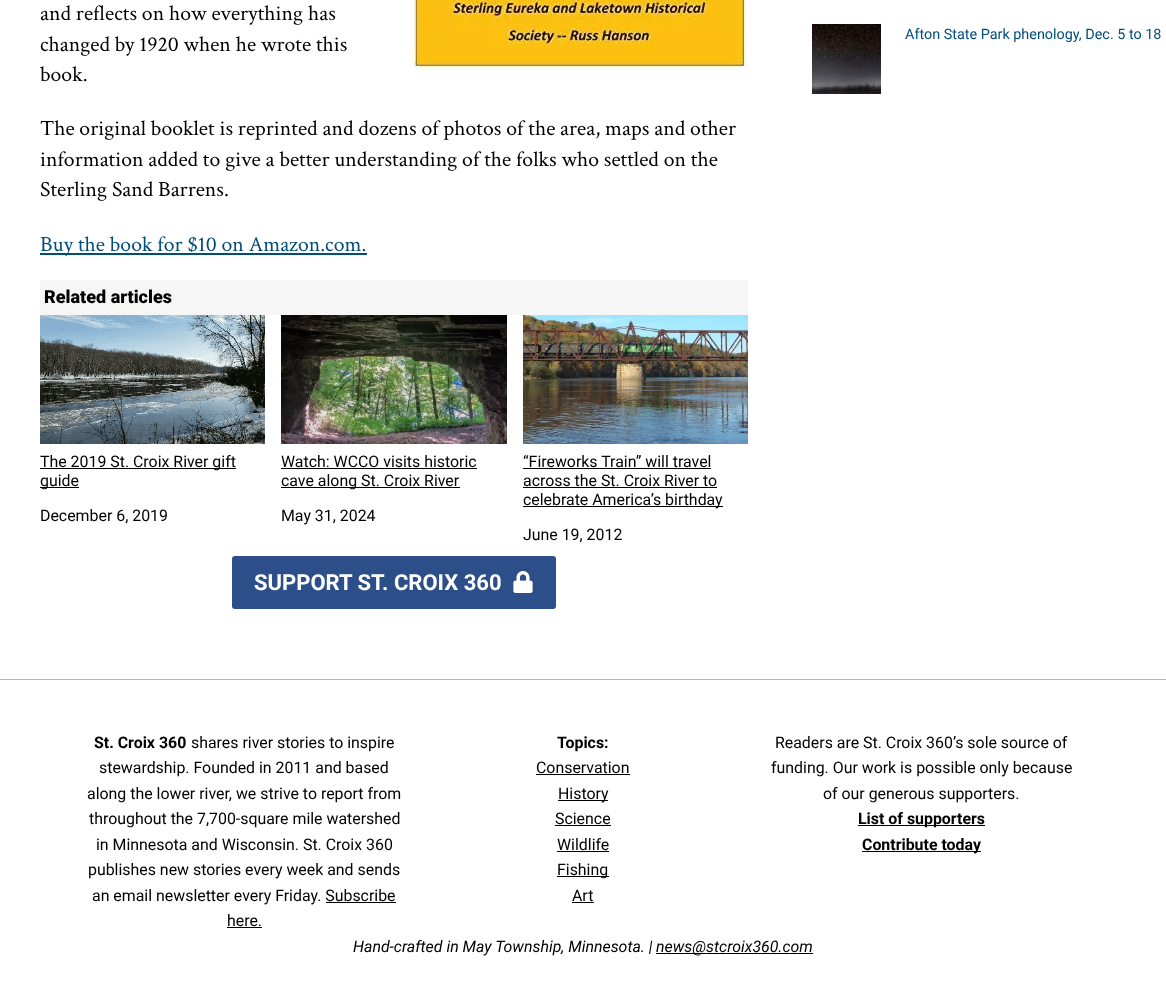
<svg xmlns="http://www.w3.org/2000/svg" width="1166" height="1005">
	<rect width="100%" height="100%" fill="#FFFFFF" />
	<g font-family="Crimson Text" font-size="21.7" fill="#000000">
		<text x="40" y="20">and reflects on how everything has</text>
		<text x="40" y="51">changed by 1920 when he wrote this</text>
		<text x="40" y="81">book.</text>
	</g>
	<image x="413" y="0" width="335" height="69" href="assets/img1.png" />
	<g font-family="Crimson Text" font-size="21.7" fill="#000000">
		<text x="40" y="135">The original booklet is reprinted and dozens of photos of the area, maps and other</text>
		<text x="40" y="166">information added to give a better understanding of the folks who settled on the</text>
		<text x="40" y="196">Sterling Sand Barrens.</text>
	</g>
	<rect x="40" y="253" width="327" height="2" fill="#004D7A" />
	<text x="40" y="251" font-family="Crimson Text" font-size="21.7" fill="#004D7A">Buy the book for $10 on Amazon.com.</text>
	<rect x="40" y="280" width="708" height="35" fill="#F6F6F6" />
	<text x="44" y="303" font-family="Roboto" font-size="18" font-weight="900" fill="#000000">Related articles</text>
	<image x="40" y="315" width="225" height="129" href="assets/img2.png" />
	<rect x="40" y="468" width="196" height="1" fill="#000000" />
	<text x="40" y="467" font-family="Roboto" font-size="15.9" fill="#000000">The 2019 St. Croix River gift</text>
	<rect x="40" y="487" width="39" height="1" fill="#000000" />
	<g font-family="Roboto" font-size="15.9" fill="#000000">
		<text x="40" y="486">guide</text>
		<text x="40" y="521">December 6, 2019</text>
	</g>
	<image x="281" y="315" width="226" height="129" href="assets/img3.png" />
	<text x="281" y="467" font-family="Roboto" font-size="15.9" fill="#000000">Watch: WCCO visits historic</text>
	<rect x="281" y="468" width="196" height="1" fill="#000000" />
	<rect x="281" y="487" width="179" height="1" fill="#000000" />
	<g font-family="Roboto" font-size="15.9" fill="#000000">
		<text x="281" y="486">cave along St. Croix River</text>
		<text x="281" y="521">May 31, 2024</text>
	</g>
	<image x="523" y="315" width="225" height="129" href="assets/img4.png" />
	<text x="523" y="467" font-family="Roboto" font-size="15.9" fill="#000000">“Fireworks Train” will travel</text>
	<rect x="523" y="468" width="188" height="1" fill="#000000" />
	<text x="523" y="486" font-family="Roboto" font-size="15.9" fill="#000000">across the St. Croix River to</text>
	<rect x="523" y="487" width="194" height="1" fill="#000000" />
	<rect x="523" y="506" width="200" height="1" fill="#000000" />
	<g font-family="Roboto" font-size="15.9" fill="#000000">
		<text x="523" y="505">celebrate America’s birthday</text>
		<text x="523" y="540">June 19, 2012</text>
	</g>
	<rect x="232" y="556" width="324" height="53" rx="3" fill="#2C4F89" />
	<text x="254" y="590" font-family="Roboto" font-size="22" font-weight="700" fill="#FFFFFF">SUPPORT ST. CROIX 360</text>
	<image x="513" y="571" width="20" height="22" href="assets/img5.png" />
	<image x="812" y="24" width="69" height="70" href="assets/img6.png" />
	<text x="905" y="39" font-family="Roboto" font-size="14.4" fill="#004D7A">Afton State Park phenology, Dec. 5 to 18</text>
	<rect x="0" y="679" width="1166" height="1" fill="#ABB8C3" />
	<text x="94" y="748" font-family="Roboto" font-size="15.9" font-weight="700" fill="#000000">St. Croix 360</text>
	<g font-family="Roboto" font-size="15.9" fill="#000000">
		<text x="191" y="748">shares river stories to inspire</text>
		<text x="99" y="773">stewardship. Founded in 2011 and based</text>
		<text x="87" y="799">along the lower river, we strive to report from</text>
		<text x="89" y="824">throughout the 7,700-square mile watershed</text>
		<text x="96" y="850">in Minnesota and Wisconsin. St. Croix 360</text>
		<text x="88" y="875">publishes new stories every week and sends</text>
		<text x="92" y="901">an email newsletter every Friday. Subscribe</text>
		<text x="227" y="926">here.</text>
	</g>
	<rect x="326" y="902" width="70" height="1" fill="#000000" />
	<rect x="227" y="927" width="35" height="1" fill="#000000" />
	<text x="557" y="748" font-family="Roboto" font-size="15.9" font-weight="700" fill="#000000">Topics:</text>
	<text x="536" y="773" font-family="Roboto" font-size="15.9" fill="#000000">Conservation</text>
	<rect x="536" y="774" width="94" height="1" fill="#000000" />
	<rect x="558" y="800" width="50" height="1" fill="#000000" />
	<g font-family="Roboto" font-size="15.9" fill="#000000">
		<text x="558" y="799">History</text>
		<text x="555" y="824">Science</text>
	</g>
	<rect x="555" y="825" width="56" height="1" fill="#000000" />
	<text x="557" y="850" font-family="Roboto" font-size="15.9" fill="#000000">Wildlife</text>
	<rect x="557" y="851" width="52" height="1" fill="#000000" />
	<rect x="557" y="876" width="52" height="1" fill="#000000" />
	<g font-family="Roboto" font-size="15.9" fill="#000000">
		<text x="557" y="875">Fishing</text>
		<text x="572" y="901">Art</text>
	</g>
	<rect x="572" y="902" width="22" height="1" fill="#000000" />
	<g font-family="Roboto" font-size="15.9" fill="#000000">
		<text x="775" y="748">Readers are St. Croix 360’s sole source of</text>
		<text x="771" y="773">funding. Our work is possible only because</text>
		<text x="823" y="799">of our generous supporters.</text>
	</g>
	<rect x="858" y="825" width="127" height="1" fill="#000000" />
	<text x="858" y="824" font-family="Roboto" font-size="15.9" font-weight="700" fill="#000000">List of supporters</text>
	<rect x="862" y="851" width="119" height="1" fill="#000000" />
	<text x="862" y="850" font-family="Roboto" font-size="15.9" font-weight="700" fill="#000000">Contribute today</text>
	<text x="353" y="952" font-family="Roboto" font-size="15.9" font-style="italic" fill="#000000">Hand-crafted in May Township, Minnesota. |</text>
	<rect x="656" y="953" width="157" height="1" fill="#000000" />
	<text x="656" y="952" font-family="Roboto" font-size="15.9" font-style="italic" fill="#000000">news@stcroix360.com</text>
</svg>
